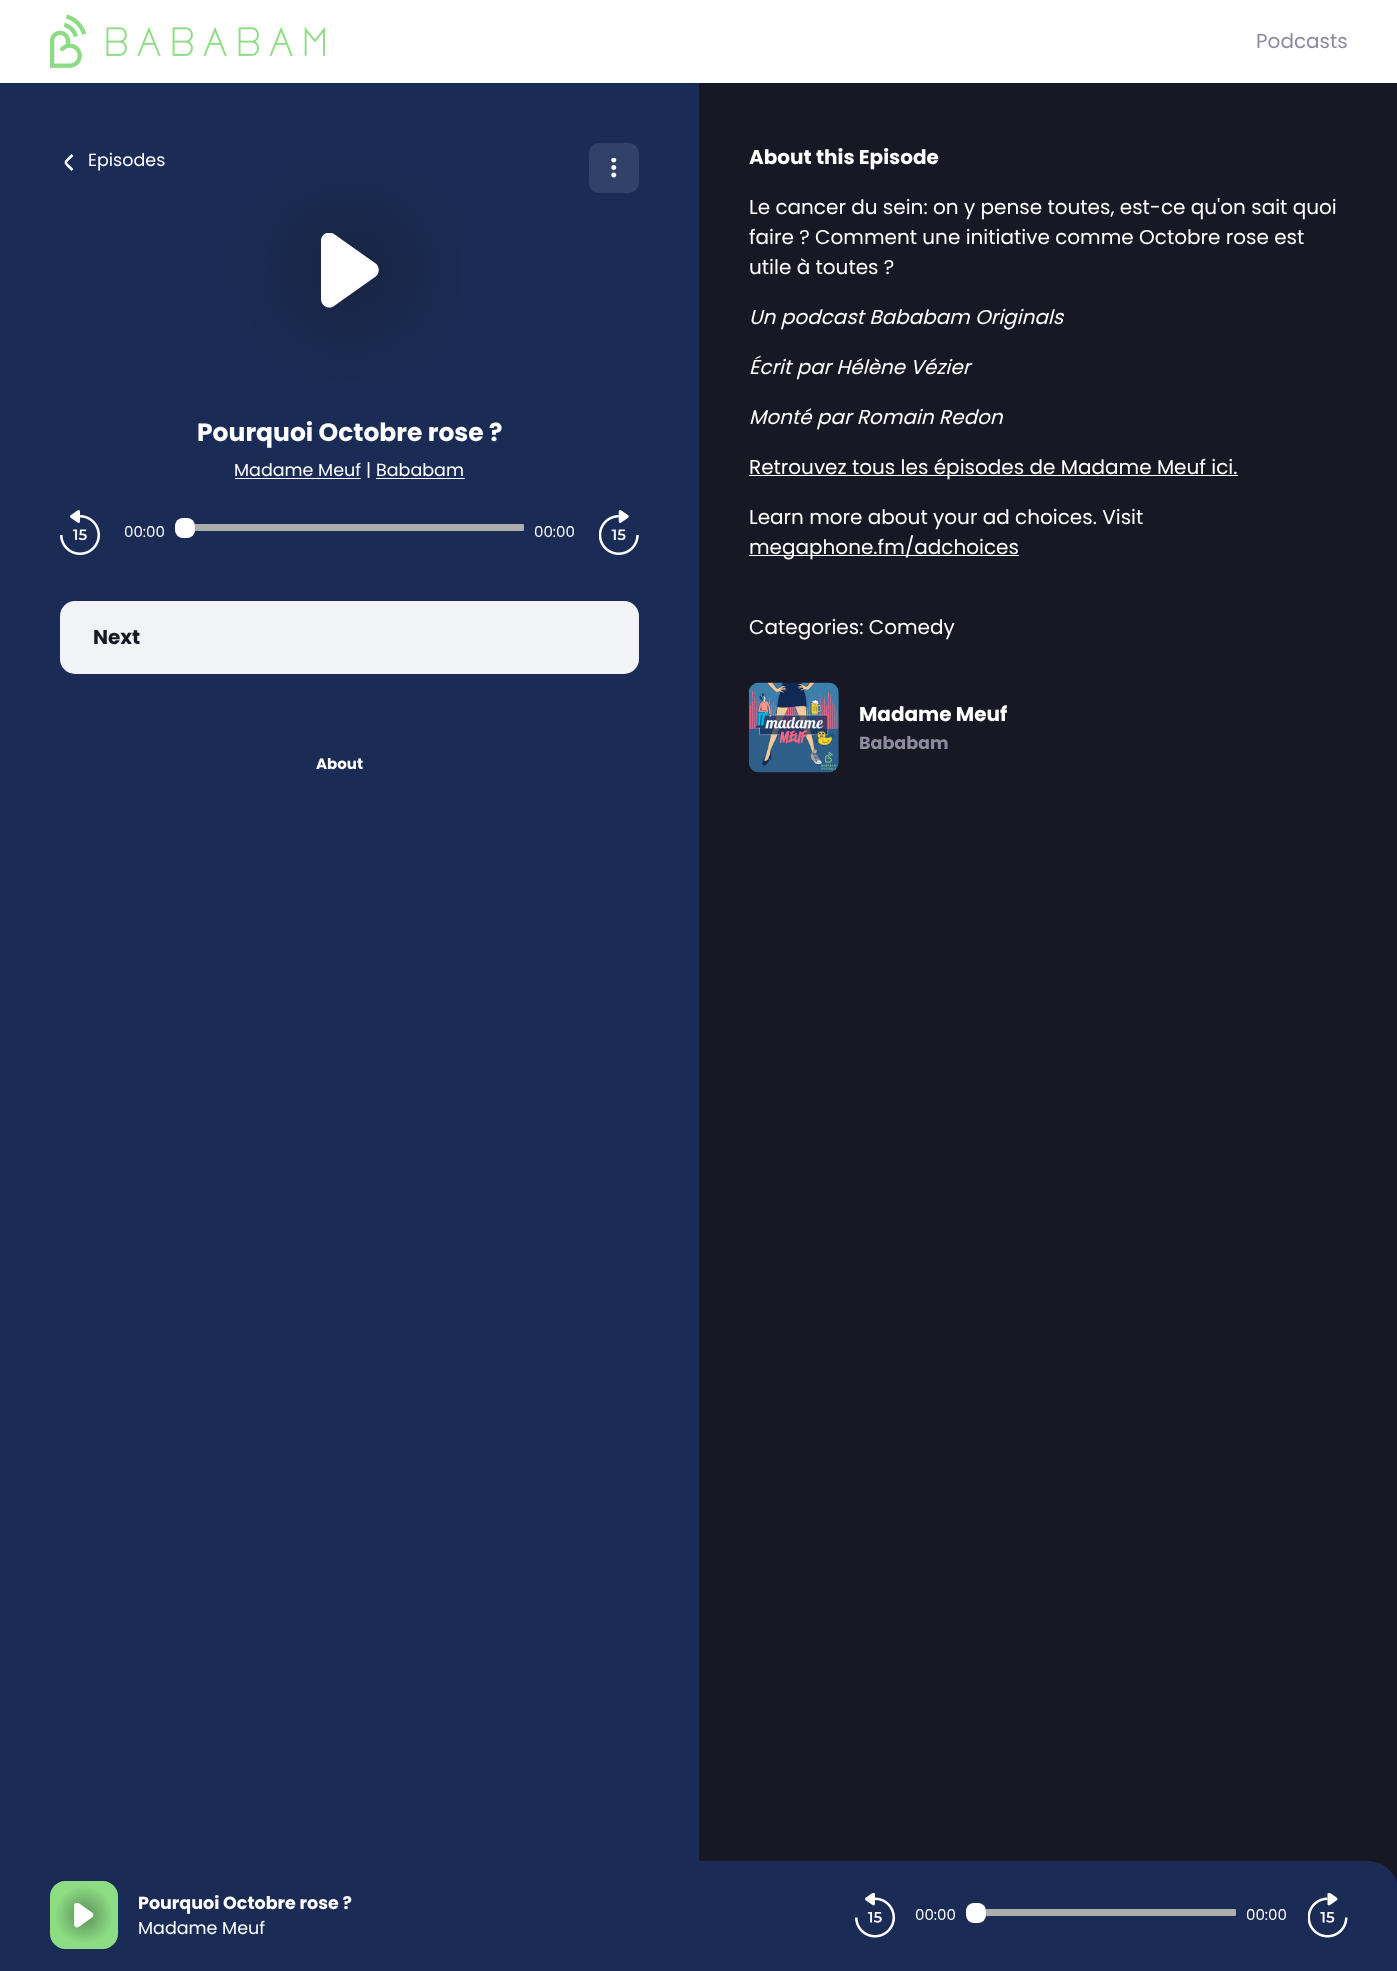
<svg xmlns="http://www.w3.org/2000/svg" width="1397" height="1971">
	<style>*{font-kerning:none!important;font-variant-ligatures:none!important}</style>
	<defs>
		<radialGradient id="g1" gradientUnits="userSpaceOnUse" cx="350" cy="270" r="128"><stop offset="0" stop-color="#192442" /><stop offset="1" stop-color="#1A2C56" /></radialGradient>
		<clipPath id="clip1"><rect x="313" y="233" width="75" height="75" /></clipPath>
		<radialGradient id="g2" gradientUnits="userSpaceOnUse" cx="84" cy="1915" r="29"><stop offset="0" stop-color="#5D8D5C" /><stop offset="1" stop-color="#8BDC82" /></radialGradient>
	</defs>
	<rect width="100%" height="100%" fill="#FFFFFF" />
	<image x="50" y="14" width="275" height="54" href="assets/img1.png" />
	<text x="1256" y="48" font-family="Poppins" font-size="20" fill="#8D8A9E">Podcasts</text>
	<rect x="0" y="83" width="699" height="1808" fill="#1A2C56" />
	<path d="M72.5 155C63.5 164 63.5 161 72.5 170" fill="none" stroke="#FFFFFF" stroke-width="2.5" />
	<text x="88" y="166" font-family="Poppins" font-size="17.5" fill="#FFFFFF">Episodes</text>
	<rect x="589" y="143" width="50" height="50" rx="10" fill="#314167" />
	<image x="611" y="158" width="6" height="20" href="assets/img2.png" />
	<rect x="223" y="143" width="255" height="255" rx="10" fill="url(#g1)" />
	<g clip-path="url(#clip1)">
		<path d="M321 299V241C321 234 329 230 334 234L375 263C380 266 380 274 375 277L334 306C329 310 321 306 321 299Z" fill="#FFFFFF" />
	</g>
	<text x="197" y="441" font-family="Poppins" font-size="25" font-weight="700" fill="#FFFFFF">Pourquoi Octobre rose ?</text>
	<text x="234" y="476" font-family="Poppins" font-size="17.5" fill="#FFFFFF">Madame Meuf</text>
	<rect x="235" y="478" width="126" height="1" fill="#FFFFFF" />
	<g font-family="Poppins" font-size="17.5" fill="#FFFFFF">
		<text x="366" y="476">|</text>
		<text x="376" y="476">Bababam</text>
	</g>
	<rect x="376" y="478" width="89" height="1" fill="#FFFFFF" />
	<image x="60" y="510" width="40" height="45" href="assets/img3.png" />
	<text x="124" y="537" font-family="Poppins" font-size="15" fill="#FFFFFF">00:00</text>
	<rect x="516" y="524" width="8" height="7" rx="1" fill="#ADADAD" />
	<rect x="515" y="524" width="8" height="7" rx="1" fill="#ADADAD" />
	<rect x="514" y="524" width="7" height="7" rx="1" fill="#ADADAD" />
	<rect x="513" y="524" width="7" height="7" rx="1" fill="#ADADAD" />
	<rect x="511" y="524" width="8" height="7" rx="1" fill="#ADADAD" />
	<rect x="510" y="524" width="8" height="7" rx="1" fill="#ADADAD" />
	<rect x="509" y="524" width="7" height="7" rx="1" fill="#ADADAD" />
	<rect x="508" y="524" width="7" height="7" rx="1" fill="#ADADAD" />
	<rect x="506" y="524" width="8" height="7" rx="1" fill="#ADADAD" />
	<rect x="505" y="524" width="8" height="7" rx="1" fill="#ADADAD" />
	<rect x="504" y="524" width="7" height="7" rx="1" fill="#ADADAD" />
	<rect x="503" y="524" width="7" height="7" rx="1" fill="#ADADAD" />
	<rect x="501" y="524" width="8" height="7" rx="1" fill="#ADADAD" />
	<rect x="500" y="524" width="8" height="7" rx="1" fill="#ADADAD" />
	<rect x="499" y="524" width="7" height="7" rx="1" fill="#ADADAD" />
	<rect x="498" y="524" width="7" height="7" rx="1" fill="#ADADAD" />
	<rect x="496" y="524" width="8" height="7" rx="1" fill="#ADADAD" />
	<rect x="495" y="524" width="8" height="7" rx="1" fill="#ADADAD" />
	<rect x="494" y="524" width="7" height="7" rx="1" fill="#ADADAD" />
	<rect x="493" y="524" width="7" height="7" rx="1" fill="#ADADAD" />
	<rect x="491" y="524" width="8" height="7" rx="1" fill="#ADADAD" />
	<rect x="490" y="524" width="8" height="7" rx="1" fill="#ADADAD" />
	<rect x="489" y="524" width="7" height="7" rx="1" fill="#ADADAD" />
	<rect x="488" y="524" width="7" height="7" rx="1" fill="#ADADAD" />
	<rect x="486" y="524" width="8" height="7" rx="1" fill="#ADADAD" />
	<rect x="485" y="524" width="8" height="7" rx="1" fill="#ADADAD" />
	<rect x="484" y="524" width="7" height="7" rx="1" fill="#ADADAD" />
	<rect x="483" y="524" width="7" height="7" rx="1" fill="#ADADAD" />
	<rect x="481" y="524" width="8" height="7" rx="1" fill="#ADADAD" />
	<rect x="480" y="524" width="8" height="7" rx="1" fill="#ADADAD" />
	<rect x="479" y="524" width="7" height="7" rx="1" fill="#ADADAD" />
	<rect x="478" y="524" width="7" height="7" rx="1" fill="#ADADAD" />
	<rect x="476" y="524" width="8" height="7" rx="1" fill="#ADADAD" />
	<rect x="475" y="524" width="8" height="7" rx="1" fill="#ADADAD" />
	<rect x="474" y="524" width="7" height="7" rx="1" fill="#ADADAD" />
	<rect x="473" y="524" width="7" height="7" rx="1" fill="#ADADAD" />
	<rect x="471" y="524" width="8" height="7" rx="1" fill="#ADADAD" />
	<rect x="470" y="524" width="8" height="7" rx="1" fill="#ADADAD" />
	<rect x="469" y="524" width="7" height="7" rx="1" fill="#ADADAD" />
	<rect x="468" y="524" width="7" height="7" rx="1" fill="#ADADAD" />
	<rect x="466" y="524" width="8" height="7" rx="1" fill="#ADADAD" />
	<rect x="465" y="524" width="8" height="7" rx="1" fill="#ADADAD" />
	<rect x="464" y="524" width="7" height="7" rx="1" fill="#ADADAD" />
	<rect x="463" y="524" width="7" height="7" rx="1" fill="#ADADAD" />
	<rect x="461" y="524" width="8" height="7" rx="1" fill="#ADADAD" />
	<rect x="460" y="524" width="8" height="7" rx="1" fill="#ADADAD" />
	<rect x="459" y="524" width="7" height="7" rx="1" fill="#ADADAD" />
	<rect x="458" y="524" width="7" height="7" rx="1" fill="#ADADAD" />
	<rect x="456" y="524" width="8" height="7" rx="1" fill="#ADADAD" />
	<rect x="455" y="524" width="8" height="7" rx="1" fill="#ADADAD" />
	<rect x="454" y="524" width="7" height="7" rx="1" fill="#ADADAD" />
	<rect x="453" y="524" width="7" height="7" rx="1" fill="#ADADAD" />
	<rect x="451" y="524" width="8" height="7" rx="1" fill="#ADADAD" />
	<rect x="450" y="524" width="8" height="7" rx="1" fill="#ADADAD" />
	<rect x="449" y="524" width="7" height="7" rx="1" fill="#ADADAD" />
	<rect x="448" y="524" width="7" height="7" rx="1" fill="#ADADAD" />
	<rect x="446" y="524" width="8" height="7" rx="1" fill="#ADADAD" />
	<rect x="445" y="524" width="8" height="7" rx="1" fill="#ADADAD" />
	<rect x="444" y="524" width="7" height="7" rx="1" fill="#ADADAD" />
	<rect x="443" y="524" width="7" height="7" rx="1" fill="#ADADAD" />
	<rect x="441" y="524" width="8" height="7" rx="1" fill="#ADADAD" />
	<rect x="440" y="524" width="8" height="7" rx="1" fill="#ADADAD" />
	<rect x="439" y="524" width="7" height="7" rx="1" fill="#ADADAD" />
	<rect x="438" y="524" width="7" height="7" rx="1" fill="#ADADAD" />
	<rect x="436" y="524" width="8" height="7" rx="1" fill="#ADADAD" />
	<rect x="435" y="524" width="8" height="7" rx="1" fill="#ADADAD" />
	<rect x="434" y="524" width="7" height="7" rx="1" fill="#ADADAD" />
	<rect x="433" y="524" width="7" height="7" rx="1" fill="#ADADAD" />
	<rect x="431" y="524" width="8" height="7" rx="1" fill="#ADADAD" />
	<rect x="430" y="524" width="8" height="7" rx="1" fill="#ADADAD" />
	<rect x="429" y="524" width="7" height="7" rx="1" fill="#ADADAD" />
	<rect x="428" y="524" width="7" height="7" rx="1" fill="#ADADAD" />
	<rect x="426" y="524" width="8" height="7" rx="1" fill="#ADADAD" />
	<rect x="425" y="524" width="8" height="7" rx="1" fill="#ADADAD" />
	<rect x="424" y="524" width="7" height="7" rx="1" fill="#ADADAD" />
	<rect x="423" y="524" width="7" height="7" rx="1" fill="#ADADAD" />
	<rect x="421" y="524" width="8" height="7" rx="1" fill="#ADADAD" />
	<rect x="420" y="524" width="8" height="7" rx="1" fill="#ADADAD" />
	<rect x="419" y="524" width="7" height="7" rx="1" fill="#ADADAD" />
	<rect x="418" y="524" width="7" height="7" rx="1" fill="#ADADAD" />
	<rect x="416" y="524" width="8" height="7" rx="1" fill="#ADADAD" />
	<rect x="415" y="524" width="8" height="7" rx="1" fill="#ADADAD" />
	<rect x="414" y="524" width="7" height="7" rx="1" fill="#ADADAD" />
	<rect x="413" y="524" width="7" height="7" rx="1" fill="#ADADAD" />
	<rect x="411" y="524" width="8" height="7" rx="1" fill="#ADADAD" />
	<rect x="410" y="524" width="8" height="7" rx="1" fill="#ADADAD" />
	<rect x="409" y="524" width="7" height="7" rx="1" fill="#ADADAD" />
	<rect x="408" y="524" width="7" height="7" rx="1" fill="#ADADAD" />
	<rect x="406" y="524" width="8" height="7" rx="1" fill="#ADADAD" />
	<rect x="405" y="524" width="8" height="7" rx="1" fill="#ADADAD" />
	<rect x="404" y="524" width="7" height="7" rx="1" fill="#ADADAD" />
	<rect x="403" y="524" width="7" height="7" rx="1" fill="#ADADAD" />
	<rect x="401" y="524" width="8" height="7" rx="1" fill="#ADADAD" />
	<rect x="400" y="524" width="8" height="7" rx="1" fill="#ADADAD" />
	<rect x="399" y="524" width="7" height="7" rx="1" fill="#ADADAD" />
	<rect x="398" y="524" width="7" height="7" rx="1" fill="#ADADAD" />
	<rect x="396" y="524" width="8" height="7" rx="1" fill="#ADADAD" />
	<rect x="395" y="524" width="8" height="7" rx="1" fill="#ADADAD" />
	<rect x="394" y="524" width="7" height="7" rx="1" fill="#ADADAD" />
	<rect x="393" y="524" width="7" height="7" rx="1" fill="#ADADAD" />
	<rect x="391" y="524" width="8" height="7" rx="1" fill="#ADADAD" />
	<rect x="390" y="524" width="8" height="7" rx="1" fill="#ADADAD" />
	<rect x="389" y="524" width="7" height="7" rx="1" fill="#ADADAD" />
	<rect x="388" y="524" width="7" height="7" rx="1" fill="#ADADAD" />
	<rect x="386" y="524" width="8" height="7" rx="1" fill="#ADADAD" />
	<rect x="385" y="524" width="8" height="7" rx="1" fill="#ADADAD" />
	<rect x="384" y="524" width="7" height="7" rx="1" fill="#ADADAD" />
	<rect x="383" y="524" width="7" height="7" rx="1" fill="#ADADAD" />
	<rect x="381" y="524" width="8" height="7" rx="1" fill="#ADADAD" />
	<rect x="380" y="524" width="8" height="7" rx="1" fill="#ADADAD" />
	<rect x="379" y="524" width="7" height="7" rx="1" fill="#ADADAD" />
	<rect x="378" y="524" width="7" height="7" rx="1" fill="#ADADAD" />
	<rect x="376" y="524" width="8" height="7" rx="1" fill="#ADADAD" />
	<rect x="375" y="524" width="8" height="7" rx="1" fill="#ADADAD" />
	<rect x="374" y="524" width="7" height="7" rx="1" fill="#ADADAD" />
	<rect x="373" y="524" width="7" height="7" rx="1" fill="#ADADAD" />
	<rect x="371" y="524" width="8" height="7" rx="1" fill="#ADADAD" />
	<rect x="370" y="524" width="8" height="7" rx="1" fill="#ADADAD" />
	<rect x="369" y="524" width="7" height="7" rx="1" fill="#ADADAD" />
	<rect x="368" y="524" width="7" height="7" rx="1" fill="#ADADAD" />
	<rect x="366" y="524" width="8" height="7" rx="1" fill="#ADADAD" />
	<rect x="365" y="524" width="8" height="7" rx="1" fill="#ADADAD" />
	<rect x="364" y="524" width="7" height="7" rx="1" fill="#ADADAD" />
	<rect x="363" y="524" width="7" height="7" rx="1" fill="#ADADAD" />
	<rect x="361" y="524" width="8" height="7" rx="1" fill="#ADADAD" />
	<rect x="360" y="524" width="8" height="7" rx="1" fill="#ADADAD" />
	<rect x="359" y="524" width="7" height="7" rx="1" fill="#ADADAD" />
	<rect x="358" y="524" width="7" height="7" rx="1" fill="#ADADAD" />
	<rect x="356" y="524" width="8" height="7" rx="1" fill="#ADADAD" />
	<rect x="355" y="524" width="8" height="7" rx="1" fill="#ADADAD" />
	<rect x="354" y="524" width="7" height="7" rx="1" fill="#ADADAD" />
	<rect x="353" y="524" width="7" height="7" rx="1" fill="#ADADAD" />
	<rect x="351" y="524" width="8" height="7" rx="1" fill="#ADADAD" />
	<rect x="350" y="524" width="8" height="7" rx="1" fill="#ADADAD" />
	<rect x="349" y="524" width="7" height="7" rx="1" fill="#ADADAD" />
	<rect x="348" y="524" width="7" height="7" rx="1" fill="#ADADAD" />
	<rect x="346" y="524" width="8" height="7" rx="1" fill="#ADADAD" />
	<rect x="345" y="524" width="8" height="7" rx="1" fill="#ADADAD" />
	<rect x="344" y="524" width="7" height="7" rx="1" fill="#ADADAD" />
	<rect x="343" y="524" width="7" height="7" rx="1" fill="#ADADAD" />
	<rect x="341" y="524" width="8" height="7" rx="1" fill="#ADADAD" />
	<rect x="340" y="524" width="8" height="7" rx="1" fill="#ADADAD" />
	<rect x="339" y="524" width="7" height="7" rx="1" fill="#ADADAD" />
	<rect x="338" y="524" width="7" height="7" rx="1" fill="#ADADAD" />
	<rect x="336" y="524" width="8" height="7" rx="1" fill="#ADADAD" />
	<rect x="335" y="524" width="8" height="7" rx="1" fill="#ADADAD" />
	<rect x="334" y="524" width="7" height="7" rx="1" fill="#ADADAD" />
	<rect x="333" y="524" width="7" height="7" rx="1" fill="#ADADAD" />
	<rect x="331" y="524" width="8" height="7" rx="1" fill="#ADADAD" />
	<rect x="330" y="524" width="8" height="7" rx="1" fill="#ADADAD" />
	<rect x="329" y="524" width="7" height="7" rx="1" fill="#ADADAD" />
	<rect x="328" y="524" width="7" height="7" rx="1" fill="#ADADAD" />
	<rect x="326" y="524" width="8" height="7" rx="1" fill="#ADADAD" />
	<rect x="325" y="524" width="8" height="7" rx="1" fill="#ADADAD" />
	<rect x="324" y="524" width="7" height="7" rx="1" fill="#ADADAD" />
	<rect x="323" y="524" width="7" height="7" rx="1" fill="#ADADAD" />
	<rect x="321" y="524" width="8" height="7" rx="1" fill="#ADADAD" />
	<rect x="320" y="524" width="8" height="7" rx="1" fill="#ADADAD" />
	<rect x="319" y="524" width="7" height="7" rx="1" fill="#ADADAD" />
	<rect x="318" y="524" width="7" height="7" rx="1" fill="#ADADAD" />
	<rect x="316" y="524" width="8" height="7" rx="1" fill="#ADADAD" />
	<rect x="315" y="524" width="8" height="7" rx="1" fill="#ADADAD" />
	<rect x="314" y="524" width="7" height="7" rx="1" fill="#ADADAD" />
	<rect x="313" y="524" width="7" height="7" rx="1" fill="#ADADAD" />
	<rect x="311" y="524" width="8" height="7" rx="1" fill="#ADADAD" />
	<rect x="310" y="524" width="8" height="7" rx="1" fill="#ADADAD" />
	<rect x="309" y="524" width="7" height="7" rx="1" fill="#ADADAD" />
	<rect x="308" y="524" width="7" height="7" rx="1" fill="#ADADAD" />
	<rect x="306" y="524" width="8" height="7" rx="1" fill="#ADADAD" />
	<rect x="305" y="524" width="8" height="7" rx="1" fill="#ADADAD" />
	<rect x="304" y="524" width="7" height="7" rx="1" fill="#ADADAD" />
	<rect x="303" y="524" width="7" height="7" rx="1" fill="#ADADAD" />
	<rect x="301" y="524" width="8" height="7" rx="1" fill="#ADADAD" />
	<rect x="300" y="524" width="8" height="7" rx="1" fill="#ADADAD" />
	<rect x="299" y="524" width="7" height="7" rx="1" fill="#ADADAD" />
	<rect x="298" y="524" width="7" height="7" rx="1" fill="#ADADAD" />
	<rect x="296" y="524" width="8" height="7" rx="1" fill="#ADADAD" />
	<rect x="295" y="524" width="8" height="7" rx="1" fill="#ADADAD" />
	<rect x="294" y="524" width="7" height="7" rx="1" fill="#ADADAD" />
	<rect x="293" y="524" width="7" height="7" rx="1" fill="#ADADAD" />
	<rect x="291" y="524" width="8" height="7" rx="1" fill="#ADADAD" />
	<rect x="290" y="524" width="8" height="7" rx="1" fill="#ADADAD" />
	<rect x="289" y="524" width="7" height="7" rx="1" fill="#ADADAD" />
	<rect x="288" y="524" width="7" height="7" rx="1" fill="#ADADAD" />
	<rect x="286" y="524" width="8" height="7" rx="1" fill="#ADADAD" />
	<rect x="285" y="524" width="8" height="7" rx="1" fill="#ADADAD" />
	<rect x="284" y="524" width="7" height="7" rx="1" fill="#ADADAD" />
	<rect x="283" y="524" width="7" height="7" rx="1" fill="#ADADAD" />
	<rect x="281" y="524" width="8" height="7" rx="1" fill="#ADADAD" />
	<rect x="280" y="524" width="8" height="7" rx="1" fill="#ADADAD" />
	<rect x="279" y="524" width="7" height="7" rx="1" fill="#ADADAD" />
	<rect x="278" y="524" width="7" height="7" rx="1" fill="#ADADAD" />
	<rect x="276" y="524" width="8" height="7" rx="1" fill="#ADADAD" />
	<rect x="275" y="524" width="8" height="7" rx="1" fill="#ADADAD" />
	<rect x="274" y="524" width="7" height="7" rx="1" fill="#ADADAD" />
	<rect x="273" y="524" width="7" height="7" rx="1" fill="#ADADAD" />
	<rect x="271" y="524" width="8" height="7" rx="1" fill="#ADADAD" />
	<rect x="270" y="524" width="8" height="7" rx="1" fill="#ADADAD" />
	<rect x="269" y="524" width="7" height="7" rx="1" fill="#ADADAD" />
	<rect x="268" y="524" width="7" height="7" rx="1" fill="#ADADAD" />
	<rect x="266" y="524" width="8" height="7" rx="1" fill="#ADADAD" />
	<rect x="265" y="524" width="8" height="7" rx="1" fill="#ADADAD" />
	<rect x="264" y="524" width="7" height="7" rx="1" fill="#ADADAD" />
	<rect x="263" y="524" width="7" height="7" rx="1" fill="#ADADAD" />
	<rect x="261" y="524" width="8" height="7" rx="1" fill="#ADADAD" />
	<rect x="260" y="524" width="8" height="7" rx="1" fill="#ADADAD" />
	<rect x="259" y="524" width="7" height="7" rx="1" fill="#ADADAD" />
	<rect x="258" y="524" width="7" height="7" rx="1" fill="#ADADAD" />
	<rect x="256" y="524" width="8" height="7" rx="1" fill="#ADADAD" />
	<rect x="255" y="524" width="8" height="7" rx="1" fill="#ADADAD" />
	<rect x="254" y="524" width="7" height="7" rx="1" fill="#ADADAD" />
	<rect x="253" y="524" width="7" height="7" rx="1" fill="#ADADAD" />
	<rect x="251" y="524" width="8" height="7" rx="1" fill="#ADADAD" />
	<rect x="250" y="524" width="8" height="7" rx="1" fill="#ADADAD" />
	<rect x="249" y="524" width="7" height="7" rx="1" fill="#ADADAD" />
	<rect x="248" y="524" width="7" height="7" rx="1" fill="#ADADAD" />
	<rect x="246" y="524" width="8" height="7" rx="1" fill="#ADADAD" />
	<rect x="245" y="524" width="8" height="7" rx="1" fill="#ADADAD" />
	<rect x="244" y="524" width="7" height="7" rx="1" fill="#ADADAD" />
	<rect x="243" y="524" width="7" height="7" rx="1" fill="#ADADAD" />
	<rect x="241" y="524" width="8" height="7" rx="1" fill="#ADADAD" />
	<rect x="240" y="524" width="8" height="7" rx="1" fill="#ADADAD" />
	<rect x="239" y="524" width="7" height="7" rx="1" fill="#ADADAD" />
	<rect x="238" y="524" width="7" height="7" rx="1" fill="#ADADAD" />
	<rect x="236" y="524" width="8" height="7" rx="1" fill="#ADADAD" />
	<rect x="235" y="524" width="8" height="7" rx="1" fill="#ADADAD" />
	<rect x="234" y="524" width="7" height="7" rx="1" fill="#ADADAD" />
	<rect x="233" y="524" width="7" height="7" rx="1" fill="#ADADAD" />
	<rect x="231" y="524" width="8" height="7" rx="1" fill="#ADADAD" />
	<rect x="230" y="524" width="8" height="7" rx="1" fill="#ADADAD" />
	<rect x="229" y="524" width="7" height="7" rx="1" fill="#ADADAD" />
	<rect x="228" y="524" width="7" height="7" rx="1" fill="#ADADAD" />
	<rect x="226" y="524" width="8" height="7" rx="1" fill="#ADADAD" />
	<rect x="225" y="524" width="8" height="7" rx="1" fill="#ADADAD" />
	<rect x="224" y="524" width="7" height="7" rx="1" fill="#ADADAD" />
	<rect x="223" y="524" width="7" height="7" rx="1" fill="#ADADAD" />
	<rect x="221" y="524" width="8" height="7" rx="1" fill="#ADADAD" />
	<rect x="220" y="524" width="8" height="7" rx="1" fill="#ADADAD" />
	<rect x="219" y="524" width="7" height="7" rx="1" fill="#ADADAD" />
	<rect x="218" y="524" width="7" height="7" rx="1" fill="#ADADAD" />
	<rect x="216" y="524" width="8" height="7" rx="1" fill="#ADADAD" />
	<rect x="215" y="524" width="8" height="7" rx="1" fill="#ADADAD" />
	<rect x="214" y="524" width="7" height="7" rx="1" fill="#ADADAD" />
	<rect x="213" y="524" width="7" height="7" rx="1" fill="#ADADAD" />
	<rect x="211" y="524" width="8" height="7" rx="1" fill="#ADADAD" />
	<rect x="210" y="524" width="8" height="7" rx="1" fill="#ADADAD" />
	<rect x="209" y="524" width="7" height="7" rx="1" fill="#ADADAD" />
	<rect x="208" y="524" width="7" height="7" rx="1" fill="#ADADAD" />
	<rect x="206" y="524" width="8" height="7" rx="1" fill="#ADADAD" />
	<rect x="205" y="524" width="8" height="7" rx="1" fill="#ADADAD" />
	<rect x="204" y="524" width="7" height="7" rx="1" fill="#ADADAD" />
	<rect x="203" y="524" width="7" height="7" rx="1" fill="#ADADAD" />
	<rect x="201" y="524" width="8" height="7" rx="1" fill="#ADADAD" />
	<rect x="200" y="524" width="8" height="7" rx="1" fill="#ADADAD" />
	<rect x="199" y="524" width="7" height="7" rx="1" fill="#ADADAD" />
	<rect x="198" y="524" width="7" height="7" rx="1" fill="#ADADAD" />
	<rect x="196" y="524" width="8" height="7" rx="1" fill="#ADADAD" />
	<rect x="195" y="524" width="8" height="7" rx="1" fill="#ADADAD" />
	<path d="M195 524V531H199C201 531 201 530 201 528.5C201 527.5 201.5 524 200 524Z" fill="#ADADAD" />
	<path d="M195 531C199.5 531 200 532 200 527.5C200 523 199.5 524 195 524Z" fill="#ADADAD" />
	<rect x="175" y="518" width="20" height="20" rx="8" fill="#FFFFFF" />
	<text x="534" y="537" font-family="Poppins" font-size="15" fill="#FFFFFF">00:00</text>
	<image x="599" y="510" width="40" height="45" href="assets/img4.png" />
	<rect x="60" y="601" width="579" height="73" rx="15" fill="#F2F3F6" />
	<text x="93" y="644" font-family="Poppins" font-size="20" font-weight="700" fill="#181724">Next</text>
	<text x="316" y="769" font-family="Poppins" font-size="15" font-weight="700" fill="#FFFFFF">About</text>
	<rect x="699" y="83" width="698" height="1801" fill="#181724" />
	<text x="749" y="164" font-family="Poppins" font-size="20" font-weight="700" fill="#FFFFFF">About this Episode</text>
	<g font-family="Poppins" font-size="20" fill="#FFFFFF">
		<text x="749" y="214">Le cancer du sein: on y pense toutes, est-ce qu'on sait quoi</text>
		<text x="749" y="244">faire ? Comment une initiative comme Octobre rose est</text>
		<text x="749" y="274">utile à toutes ?</text>
	</g>
	<g font-family="Poppins" font-size="20" font-style="italic" fill="#FFFFFF">
		<text x="749" y="324">Un podcast Bababam Originals</text>
		<text x="749" y="374">Écrit par Hélène Vézier</text>
		<text x="749" y="424">Monté par Romain Redon</text>
	</g>
	<rect x="749" y="475" width="489" height="1" fill="#FFFFFF" />
	<g font-family="Poppins" font-size="20" fill="#FFFFFF">
		<text x="749" y="474">Retrouvez tous les épisodes de Madame Meuf ici.</text>
		<text x="749" y="524">Learn more about your ad choices. Visit</text>
	</g>
	<rect x="749" y="555" width="270" height="1" fill="#FFFFFF" />
	<g font-family="Poppins" font-size="20" fill="#FFFFFF">
		<text x="749" y="554">megaphone.fm/adchoices</text>
		<text x="749" y="634">Categories: Comedy</text>
	</g>
	<image x="748" y="682" width="91" height="91" href="assets/img5.png" />
	<text x="859" y="721" font-family="Poppins" font-size="20" font-weight="700" fill="#FFFFFF">Madame Meuf</text>
	<text x="859" y="749" font-family="Poppins" font-size="17.5" font-weight="700" fill="#8D8A9E">Bababam</text>
	<path d="M30 1861H1368C1384.5 1861 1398 1874.5 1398 1891V1971H0V1891C0 1874.5 13.5 1861 30 1861Z" fill="#1A2C56" />
	<path d="M65 1881H103C111 1881 118 1888 118 1896V1934C118 1942 111 1949 103 1949H65C57 1949 50 1942 50 1934V1896C50 1888 57 1881 65 1881Z" fill="#8BDC82" />
	<rect x="56" y="1887" width="56" height="56" fill="url(#g2)" />
	<image x="74" y="1903" width="20" height="25" href="assets/img6.png" />
	<text x="138" y="1909" font-family="Poppins" font-size="17.5" font-weight="700" fill="#FFFFFF">Pourquoi Octobre rose ?</text>
	<text x="138" y="1934" font-family="Poppins" font-size="17.5" fill="#FFFFFF">Madame Meuf</text>
	<image x="855" y="1893" width="40" height="45" href="assets/img7.png" />
	<text x="915" y="1920" font-family="Poppins" font-size="15" fill="#FFFFFF">00:00</text>
	<rect x="1229" y="1909" width="7" height="7" rx="1" fill="#ADADAD" />
	<rect x="1228" y="1909" width="7" height="7" rx="1" fill="#ADADAD" />
	<rect x="1226" y="1909" width="8" height="7" rx="1" fill="#ADADAD" />
	<rect x="1225" y="1909" width="8" height="7" rx="1" fill="#ADADAD" />
	<rect x="1224" y="1909" width="7" height="7" rx="1" fill="#ADADAD" />
	<rect x="1223" y="1909" width="7" height="7" rx="1" fill="#ADADAD" />
	<rect x="1221" y="1909" width="8" height="7" rx="1" fill="#ADADAD" />
	<rect x="1220" y="1909" width="8" height="7" rx="1" fill="#ADADAD" />
	<rect x="1219" y="1909" width="7" height="7" rx="1" fill="#ADADAD" />
	<rect x="1218" y="1909" width="7" height="7" rx="1" fill="#ADADAD" />
	<rect x="1216" y="1909" width="8" height="7" rx="1" fill="#ADADAD" />
	<rect x="1215" y="1909" width="8" height="7" rx="1" fill="#ADADAD" />
	<rect x="1214" y="1909" width="7" height="7" rx="1" fill="#ADADAD" />
	<rect x="1213" y="1909" width="7" height="7" rx="1" fill="#ADADAD" />
	<rect x="1211" y="1909" width="8" height="7" rx="1" fill="#ADADAD" />
	<rect x="1210" y="1909" width="8" height="7" rx="1" fill="#ADADAD" />
	<rect x="1209" y="1909" width="7" height="7" rx="1" fill="#ADADAD" />
	<rect x="1208" y="1909" width="7" height="7" rx="1" fill="#ADADAD" />
	<rect x="1206" y="1909" width="8" height="7" rx="1" fill="#ADADAD" />
	<rect x="1205" y="1909" width="8" height="7" rx="1" fill="#ADADAD" />
	<rect x="1204" y="1909" width="7" height="7" rx="1" fill="#ADADAD" />
	<rect x="1203" y="1909" width="7" height="7" rx="1" fill="#ADADAD" />
	<rect x="1201" y="1909" width="8" height="7" rx="1" fill="#ADADAD" />
	<rect x="1200" y="1909" width="8" height="7" rx="1" fill="#ADADAD" />
	<rect x="1199" y="1909" width="7" height="7" rx="1" fill="#ADADAD" />
	<rect x="1198" y="1909" width="7" height="7" rx="1" fill="#ADADAD" />
	<rect x="1196" y="1909" width="8" height="7" rx="1" fill="#ADADAD" />
	<rect x="1195" y="1909" width="8" height="7" rx="1" fill="#ADADAD" />
	<rect x="1194" y="1909" width="7" height="7" rx="1" fill="#ADADAD" />
	<rect x="1193" y="1909" width="7" height="7" rx="1" fill="#ADADAD" />
	<rect x="1191" y="1909" width="8" height="7" rx="1" fill="#ADADAD" />
	<rect x="1190" y="1909" width="8" height="7" rx="1" fill="#ADADAD" />
	<rect x="1189" y="1909" width="7" height="7" rx="1" fill="#ADADAD" />
	<rect x="1188" y="1909" width="7" height="7" rx="1" fill="#ADADAD" />
	<rect x="1186" y="1909" width="8" height="7" rx="1" fill="#ADADAD" />
	<rect x="1185" y="1909" width="8" height="7" rx="1" fill="#ADADAD" />
	<rect x="1184" y="1909" width="7" height="7" rx="1" fill="#ADADAD" />
	<rect x="1183" y="1909" width="7" height="7" rx="1" fill="#ADADAD" />
	<rect x="1181" y="1909" width="8" height="7" rx="1" fill="#ADADAD" />
	<rect x="1180" y="1909" width="8" height="7" rx="1" fill="#ADADAD" />
	<rect x="1179" y="1909" width="7" height="7" rx="1" fill="#ADADAD" />
	<rect x="1178" y="1909" width="7" height="7" rx="1" fill="#ADADAD" />
	<rect x="1176" y="1909" width="8" height="7" rx="1" fill="#ADADAD" />
	<rect x="1175" y="1909" width="8" height="7" rx="1" fill="#ADADAD" />
	<rect x="1174" y="1909" width="7" height="7" rx="1" fill="#ADADAD" />
	<rect x="1173" y="1909" width="7" height="7" rx="1" fill="#ADADAD" />
	<rect x="1171" y="1909" width="8" height="7" rx="1" fill="#ADADAD" />
	<rect x="1170" y="1909" width="8" height="7" rx="1" fill="#ADADAD" />
	<rect x="1169" y="1909" width="7" height="7" rx="1" fill="#ADADAD" />
	<rect x="1168" y="1909" width="7" height="7" rx="1" fill="#ADADAD" />
	<rect x="1166" y="1909" width="8" height="7" rx="1" fill="#ADADAD" />
	<rect x="1165" y="1909" width="8" height="7" rx="1" fill="#ADADAD" />
	<rect x="1164" y="1909" width="7" height="7" rx="1" fill="#ADADAD" />
	<rect x="1163" y="1909" width="7" height="7" rx="1" fill="#ADADAD" />
	<rect x="1161" y="1909" width="8" height="7" rx="1" fill="#ADADAD" />
	<rect x="1160" y="1909" width="8" height="7" rx="1" fill="#ADADAD" />
	<rect x="1159" y="1909" width="7" height="7" rx="1" fill="#ADADAD" />
	<rect x="1158" y="1909" width="7" height="7" rx="1" fill="#ADADAD" />
	<rect x="1156" y="1909" width="8" height="7" rx="1" fill="#ADADAD" />
	<rect x="1155" y="1909" width="8" height="7" rx="1" fill="#ADADAD" />
	<rect x="1154" y="1909" width="7" height="7" rx="1" fill="#ADADAD" />
	<rect x="1153" y="1909" width="7" height="7" rx="1" fill="#ADADAD" />
	<rect x="1151" y="1909" width="8" height="7" rx="1" fill="#ADADAD" />
	<rect x="1150" y="1909" width="8" height="7" rx="1" fill="#ADADAD" />
	<rect x="1149" y="1909" width="7" height="7" rx="1" fill="#ADADAD" />
	<rect x="1148" y="1909" width="7" height="7" rx="1" fill="#ADADAD" />
	<rect x="1146" y="1909" width="8" height="7" rx="1" fill="#ADADAD" />
	<rect x="1145" y="1909" width="8" height="7" rx="1" fill="#ADADAD" />
	<rect x="1144" y="1909" width="7" height="7" rx="1" fill="#ADADAD" />
	<rect x="1143" y="1909" width="7" height="7" rx="1" fill="#ADADAD" />
	<rect x="1141" y="1909" width="8" height="7" rx="1" fill="#ADADAD" />
	<rect x="1140" y="1909" width="8" height="7" rx="1" fill="#ADADAD" />
	<rect x="1139" y="1909" width="7" height="7" rx="1" fill="#ADADAD" />
	<rect x="1138" y="1909" width="7" height="7" rx="1" fill="#ADADAD" />
	<rect x="1136" y="1909" width="8" height="7" rx="1" fill="#ADADAD" />
	<rect x="1135" y="1909" width="8" height="7" rx="1" fill="#ADADAD" />
	<rect x="1134" y="1909" width="7" height="7" rx="1" fill="#ADADAD" />
	<rect x="1133" y="1909" width="7" height="7" rx="1" fill="#ADADAD" />
	<rect x="1131" y="1909" width="8" height="7" rx="1" fill="#ADADAD" />
	<rect x="1130" y="1909" width="8" height="7" rx="1" fill="#ADADAD" />
	<rect x="1129" y="1909" width="7" height="7" rx="1" fill="#ADADAD" />
	<rect x="1128" y="1909" width="7" height="7" rx="1" fill="#ADADAD" />
	<rect x="1126" y="1909" width="8" height="7" rx="1" fill="#ADADAD" />
	<rect x="1125" y="1909" width="8" height="7" rx="1" fill="#ADADAD" />
	<rect x="1124" y="1909" width="7" height="7" rx="1" fill="#ADADAD" />
	<rect x="1123" y="1909" width="7" height="7" rx="1" fill="#ADADAD" />
	<rect x="1121" y="1909" width="8" height="7" rx="1" fill="#ADADAD" />
	<rect x="1120" y="1909" width="8" height="7" rx="1" fill="#ADADAD" />
	<rect x="1119" y="1909" width="7" height="7" rx="1" fill="#ADADAD" />
	<rect x="1118" y="1909" width="7" height="7" rx="1" fill="#ADADAD" />
	<rect x="1116" y="1909" width="8" height="7" rx="1" fill="#ADADAD" />
	<rect x="1115" y="1909" width="8" height="7" rx="1" fill="#ADADAD" />
	<rect x="1114" y="1909" width="7" height="7" rx="1" fill="#ADADAD" />
	<rect x="1113" y="1909" width="7" height="7" rx="1" fill="#ADADAD" />
	<rect x="1111" y="1909" width="8" height="7" rx="1" fill="#ADADAD" />
	<rect x="1110" y="1909" width="8" height="7" rx="1" fill="#ADADAD" />
	<rect x="1109" y="1909" width="7" height="7" rx="1" fill="#ADADAD" />
	<rect x="1108" y="1909" width="7" height="7" rx="1" fill="#ADADAD" />
	<rect x="1106" y="1909" width="8" height="7" rx="1" fill="#ADADAD" />
	<rect x="1105" y="1909" width="8" height="7" rx="1" fill="#ADADAD" />
	<rect x="1104" y="1909" width="7" height="7" rx="1" fill="#ADADAD" />
	<rect x="1103" y="1909" width="7" height="7" rx="1" fill="#ADADAD" />
	<rect x="1101" y="1909" width="8" height="7" rx="1" fill="#ADADAD" />
	<rect x="1100" y="1909" width="8" height="7" rx="1" fill="#ADADAD" />
	<rect x="1099" y="1909" width="7" height="7" rx="1" fill="#ADADAD" />
	<rect x="1098" y="1909" width="7" height="7" rx="1" fill="#ADADAD" />
	<rect x="1096" y="1909" width="8" height="7" rx="1" fill="#ADADAD" />
	<rect x="1095" y="1909" width="8" height="7" rx="1" fill="#ADADAD" />
	<rect x="1094" y="1909" width="7" height="7" rx="1" fill="#ADADAD" />
	<rect x="1093" y="1909" width="7" height="7" rx="1" fill="#ADADAD" />
	<rect x="1091" y="1909" width="8" height="7" rx="1" fill="#ADADAD" />
	<rect x="1090" y="1909" width="8" height="7" rx="1" fill="#ADADAD" />
	<rect x="1089" y="1909" width="7" height="7" rx="1" fill="#ADADAD" />
	<rect x="1088" y="1909" width="7" height="7" rx="1" fill="#ADADAD" />
	<rect x="1086" y="1909" width="8" height="7" rx="1" fill="#ADADAD" />
	<rect x="1085" y="1909" width="8" height="7" rx="1" fill="#ADADAD" />
	<rect x="1084" y="1909" width="7" height="7" rx="1" fill="#ADADAD" />
	<rect x="1083" y="1909" width="7" height="7" rx="1" fill="#ADADAD" />
	<rect x="1081" y="1909" width="8" height="7" rx="1" fill="#ADADAD" />
	<rect x="1080" y="1909" width="8" height="7" rx="1" fill="#ADADAD" />
	<rect x="1079" y="1909" width="7" height="7" rx="1" fill="#ADADAD" />
	<rect x="1078" y="1909" width="7" height="7" rx="1" fill="#ADADAD" />
	<rect x="1076" y="1909" width="8" height="7" rx="1" fill="#ADADAD" />
	<rect x="1075" y="1909" width="8" height="7" rx="1" fill="#ADADAD" />
	<rect x="1074" y="1909" width="7" height="7" rx="1" fill="#ADADAD" />
	<rect x="1073" y="1909" width="7" height="7" rx="1" fill="#ADADAD" />
	<rect x="1071" y="1909" width="8" height="7" rx="1" fill="#ADADAD" />
	<rect x="1070" y="1909" width="8" height="7" rx="1" fill="#ADADAD" />
	<rect x="1069" y="1909" width="7" height="7" rx="1" fill="#ADADAD" />
	<rect x="1068" y="1909" width="7" height="7" rx="1" fill="#ADADAD" />
	<rect x="1066" y="1909" width="8" height="7" rx="1" fill="#ADADAD" />
	<rect x="1065" y="1909" width="8" height="7" rx="1" fill="#ADADAD" />
	<rect x="1064" y="1909" width="7" height="7" rx="1" fill="#ADADAD" />
	<rect x="1063" y="1909" width="7" height="7" rx="1" fill="#ADADAD" />
	<rect x="1061" y="1909" width="8" height="7" rx="1" fill="#ADADAD" />
	<rect x="1060" y="1909" width="8" height="7" rx="1" fill="#ADADAD" />
	<rect x="1059" y="1909" width="7" height="7" rx="1" fill="#ADADAD" />
	<rect x="1058" y="1909" width="7" height="7" rx="1" fill="#ADADAD" />
	<rect x="1056" y="1909" width="8" height="7" rx="1" fill="#ADADAD" />
	<rect x="1055" y="1909" width="8" height="7" rx="1" fill="#ADADAD" />
	<rect x="1054" y="1909" width="7" height="7" rx="1" fill="#ADADAD" />
	<rect x="1053" y="1909" width="7" height="7" rx="1" fill="#ADADAD" />
	<rect x="1051" y="1909" width="8" height="7" rx="1" fill="#ADADAD" />
	<rect x="1050" y="1909" width="8" height="7" rx="1" fill="#ADADAD" />
	<rect x="1049" y="1909" width="7" height="7" rx="1" fill="#ADADAD" />
	<rect x="1048" y="1909" width="7" height="7" rx="1" fill="#ADADAD" />
	<rect x="1046" y="1909" width="8" height="7" rx="1" fill="#ADADAD" />
	<rect x="1045" y="1909" width="8" height="7" rx="1" fill="#ADADAD" />
	<rect x="1044" y="1909" width="7" height="7" rx="1" fill="#ADADAD" />
	<rect x="1043" y="1909" width="7" height="7" rx="1" fill="#ADADAD" />
	<rect x="1041" y="1909" width="8" height="7" rx="1" fill="#ADADAD" />
	<rect x="1040" y="1909" width="8" height="7" rx="1" fill="#ADADAD" />
	<rect x="1039" y="1909" width="7" height="7" rx="1" fill="#ADADAD" />
	<rect x="1038" y="1909" width="7" height="7" rx="1" fill="#ADADAD" />
	<rect x="1036" y="1909" width="8" height="7" rx="1" fill="#ADADAD" />
	<rect x="1035" y="1909" width="8" height="7" rx="1" fill="#ADADAD" />
	<rect x="1034" y="1909" width="7" height="7" rx="1" fill="#ADADAD" />
	<rect x="1033" y="1909" width="7" height="7" rx="1" fill="#ADADAD" />
	<rect x="1031" y="1909" width="8" height="7" rx="1" fill="#ADADAD" />
	<rect x="1030" y="1909" width="8" height="7" rx="1" fill="#ADADAD" />
	<rect x="1029" y="1909" width="7" height="7" rx="1" fill="#ADADAD" />
	<rect x="1028" y="1909" width="7" height="7" rx="1" fill="#ADADAD" />
	<rect x="1026" y="1909" width="8" height="7" rx="1" fill="#ADADAD" />
	<rect x="1025" y="1909" width="8" height="7" rx="1" fill="#ADADAD" />
	<rect x="1024" y="1909" width="7" height="7" rx="1" fill="#ADADAD" />
	<rect x="1023" y="1909" width="7" height="7" rx="1" fill="#ADADAD" />
	<rect x="1021" y="1909" width="8" height="7" rx="1" fill="#ADADAD" />
	<rect x="1020" y="1909" width="8" height="7" rx="1" fill="#ADADAD" />
	<rect x="1019" y="1909" width="7" height="7" rx="1" fill="#ADADAD" />
	<rect x="1018" y="1909" width="7" height="7" rx="1" fill="#ADADAD" />
	<rect x="1016" y="1909" width="8" height="7" rx="1" fill="#ADADAD" />
	<rect x="1015" y="1909" width="8" height="7" rx="1" fill="#ADADAD" />
	<rect x="1014" y="1909" width="7" height="7" rx="1" fill="#ADADAD" />
	<rect x="1013" y="1909" width="7" height="7" rx="1" fill="#ADADAD" />
	<rect x="1011" y="1909" width="8" height="7" rx="1" fill="#ADADAD" />
	<rect x="1010" y="1909" width="8" height="7" rx="1" fill="#ADADAD" />
	<rect x="1009" y="1909" width="7" height="7" rx="1" fill="#ADADAD" />
	<rect x="1008" y="1909" width="7" height="7" rx="1" fill="#ADADAD" />
	<rect x="1006" y="1909" width="8" height="7" rx="1" fill="#ADADAD" />
	<rect x="1005" y="1909" width="8" height="7" rx="1" fill="#ADADAD" />
	<rect x="1004" y="1909" width="7" height="7" rx="1" fill="#ADADAD" />
	<rect x="1003" y="1909" width="7" height="7" rx="1" fill="#ADADAD" />
	<rect x="1001" y="1909" width="8" height="7" rx="1" fill="#ADADAD" />
	<rect x="1000" y="1909" width="8" height="7" rx="1" fill="#ADADAD" />
	<rect x="999" y="1909" width="7" height="7" rx="1" fill="#ADADAD" />
	<rect x="998" y="1909" width="7" height="7" rx="1" fill="#ADADAD" />
	<rect x="996" y="1909" width="8" height="7" rx="1" fill="#ADADAD" />
	<rect x="995" y="1909" width="8" height="7" rx="1" fill="#ADADAD" />
	<rect x="994" y="1909" width="7" height="7" rx="1" fill="#ADADAD" />
	<rect x="993" y="1909" width="7" height="7" rx="1" fill="#ADADAD" />
	<rect x="991" y="1909" width="8" height="7" rx="1" fill="#ADADAD" />
	<rect x="990" y="1909" width="8" height="7" rx="1" fill="#ADADAD" />
	<rect x="989" y="1909" width="7" height="7" rx="1" fill="#ADADAD" />
	<rect x="988" y="1909" width="7" height="7" rx="1" fill="#ADADAD" />
	<path d="M987 1909L986 1909.5V1915.5C987 1916.5 989 1916 990 1916C994 1916 994 1916.5 994 1912.5C994 1911.5 994.5 1909 993 1909Z" fill="#ADADAD" />
	<path d="M986 1916H991C993.5 1916 993 1915 993 1912.5C993 1910 993.5 1909 991 1909H986Z" fill="#ADADAD" />
	<path d="M986 1916C991 1916 991 1917 991 1912.5C991 1908 991 1909 986 1909Z" fill="#ADADAD" />
	<rect x="966" y="1903" width="20" height="20" rx="8" fill="#FFFFFF" />
	<text x="1246" y="1920" font-family="Poppins" font-size="15" fill="#FFFFFF">00:00</text>
	<image x="1308" y="1893" width="40" height="45" href="assets/img8.png" />
</svg>
